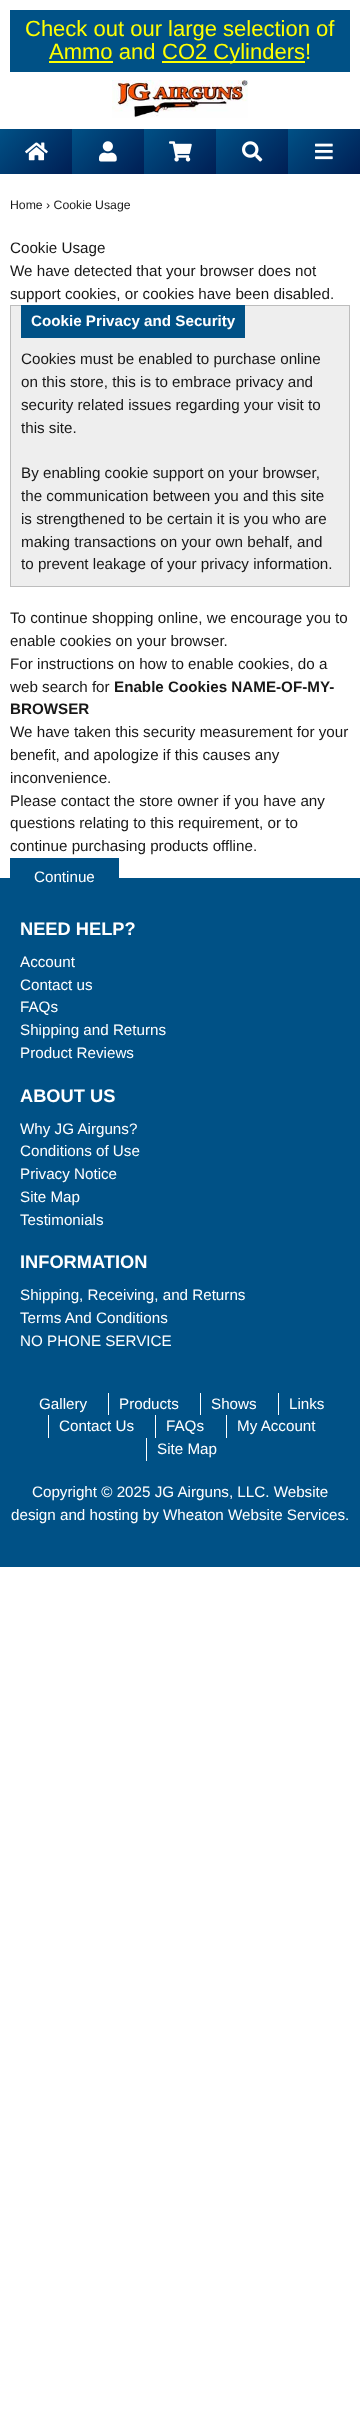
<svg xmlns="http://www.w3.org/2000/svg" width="360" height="2422">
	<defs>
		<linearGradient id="g1" gradientUnits="userSpaceOnUse" x1="6.7" y1="122" x2="65" y2="181"><stop offset="0" stop-color="#005186" /><stop offset="1" stop-color="#001E54" /></linearGradient>
		<linearGradient id="g2" gradientUnits="userSpaceOnUse" x1="79" y1="122" x2="137" y2="181"><stop offset="0" stop-color="#005186" /><stop offset="1" stop-color="#001E54" /></linearGradient>
		<linearGradient id="g3" gradientUnits="userSpaceOnUse" x1="151" y1="122" x2="209" y2="181"><stop offset="0" stop-color="#005186" /><stop offset="1" stop-color="#001E54" /></linearGradient>
		<linearGradient id="g4" gradientUnits="userSpaceOnUse" x1="223" y1="122" x2="281" y2="181"><stop offset="0" stop-color="#005186" /><stop offset="1" stop-color="#001E54" /></linearGradient>
		<linearGradient id="g5" gradientUnits="userSpaceOnUse" x1="295" y1="122" x2="353" y2="181"><stop offset="0" stop-color="#005186" /><stop offset="1" stop-color="#001E54" /></linearGradient>
	</defs>
	<rect width="100%" height="100%" fill="#FFFFFF" />
	<rect x="10" y="10" width="340" height="62" fill="#005186" />
	<g font-family="Liberation Sans" font-size="22" fill="#FFFF00">
		<text x="25" y="36">Check out our large selection of</text>
		<text x="49" y="59">Ammo and</text>
	</g>
	<rect x="49" y="61" width="64" height="2" fill="#FFFF00" />
	<rect x="162" y="61" width="143" height="2" fill="#FFFF00" />
	<text x="162" y="59" font-family="Liberation Sans" font-size="22" fill="#FFFF00">CO2 Cylinders!</text>
	<image x="112" y="80" width="136" height="38" href="assets/img1.png" />
	<rect x="0" y="129" width="72" height="45" fill="url(#g1)" />
	<image x="25" y="142" width="23" height="19" href="assets/img2.png" />
	<rect x="72" y="129" width="72" height="45" fill="url(#g2)" />
	<image x="99" y="141" width="18" height="21" href="assets/img3.png" />
	<rect x="144" y="129" width="72" height="45" fill="url(#g3)" />
	<image x="169" y="141" width="23" height="21" href="assets/img4.png" />
	<rect x="216" y="129" width="72" height="45" fill="url(#g4)" />
	<image x="242" y="141" width="21" height="21" href="assets/img5.png" />
	<rect x="288" y="129" width="72" height="45" fill="url(#g5)" />
	<image x="315" y="143" width="18" height="17" href="assets/img6.png" />
	<text x="10" y="209" font-family="Liberation Sans" font-size="12.25" fill="#171717">Home › Cookie Usage</text>
	<g font-family="Liberation Sans" font-size="15.2" fill="#171717">
		<text x="10" y="253">Cookie Usage</text>
		<text x="10" y="276">We have detected that your browser does not</text>
		<text x="10" y="299">support cookies, or cookies have been disabled.</text>
	</g>
	<rect x="10.5" y="305.5" width="339" height="281" fill="#EEEEEE" stroke="#BDBDBD" />
	<rect x="21" y="305" width="224" height="33" fill="#005186" />
	<text x="31" y="326" font-family="Liberation Sans" font-size="15.2" font-weight="700" fill="#FFFFFF">Cookie Privacy and Security</text>
	<g font-family="Liberation Sans" font-size="15.2" fill="#171717">
		<text x="21" y="364">Cookies must be enabled to purchase online</text>
		<text x="21" y="387">on this store, this is to embrace privacy and</text>
		<text x="21" y="410">security related issues regarding your visit to</text>
		<text x="21" y="433">this site.</text>
		<text x="21" y="478">By enabling cookie support on your browser,</text>
		<text x="21" y="501">the communication between you and this site</text>
		<text x="21" y="524">is strengthened to be certain it is you who are</text>
		<text x="21" y="547">making transactions on your own behalf, and</text>
		<text x="21" y="569">to prevent leakage of your privacy information.</text>
		<text x="10" y="623">To continue shopping online, we encourage you to</text>
		<text x="10" y="646">enable cookies on your browser.</text>
		<text x="10" y="669">For instructions on how to enable cookies, do a</text>
		<text x="10" y="692">web search for</text>
	</g>
	<g font-family="Liberation Sans" font-size="15.2" font-weight="700" fill="#171717">
		<text x="114" y="692">Enable Cookies NAME-OF-MY-</text>
		<text x="10" y="714">BROWSER</text>
	</g>
	<g font-family="Liberation Sans" font-size="15.2" fill="#171717">
		<text x="10" y="737">We have taken this security measurement for your</text>
		<text x="10" y="760">benefit, and apologize if this causes any</text>
		<text x="10" y="783">inconvenience.</text>
		<text x="10" y="806">Please contact the store owner if you have any</text>
		<text x="10" y="828">questions relating to this requirement, or to</text>
		<text x="10" y="851">continue purchasing products offline.</text>
	</g>
	<rect x="10" y="858" width="109" height="20" fill="#005186" />
	<rect x="0" y="878" width="360" height="689" fill="#005186" />
	<text x="34" y="882" font-family="Liberation Sans" font-size="15.2" fill="#FFFFFF">Continue</text>
	<text x="20" y="935" font-family="Liberation Sans" font-size="18.25" font-weight="700" fill="#FFFFFF">NEED HELP?</text>
	<g font-family="Liberation Sans" font-size="15.2" fill="#FFFFFF">
		<text x="20" y="967">Account</text>
		<text x="20" y="990">Contact us</text>
		<text x="20" y="1012">FAQs</text>
		<text x="20" y="1035">Shipping and Returns</text>
		<text x="20" y="1058">Product Reviews</text>
	</g>
	<text x="20" y="1102" font-family="Liberation Sans" font-size="18.25" font-weight="700" fill="#FFFFFF">ABOUT US</text>
	<g font-family="Liberation Sans" font-size="15.2" fill="#FFFFFF">
		<text x="20" y="1134">Why JG Airguns?</text>
		<text x="20" y="1156">Conditions of Use</text>
		<text x="20" y="1179">Privacy Notice</text>
		<text x="20" y="1202">Site Map</text>
		<text x="20" y="1225">Testimonials</text>
	</g>
	<text x="20" y="1268" font-family="Liberation Sans" font-size="18.25" font-weight="700" fill="#FFFFFF">INFORMATION</text>
	<g font-family="Liberation Sans" font-size="15.2" fill="#FFFFFF">
		<text x="20" y="1300">Shipping, Receiving, and Returns</text>
		<text x="20" y="1323">Terms And Conditions</text>
		<text x="20" y="1346">NO PHONE SERVICE</text>
		<text x="39" y="1409">Gallery</text>
	</g>
	<rect x="108" y="1393" width="1" height="22" fill="#FFFFFF" />
	<text x="119" y="1409" font-family="Liberation Sans" font-size="15.2" fill="#FFFFFF">Products</text>
	<rect x="200" y="1393" width="1" height="22" fill="#FFFFFF" />
	<text x="211" y="1409" font-family="Liberation Sans" font-size="15.2" fill="#FFFFFF">Shows</text>
	<rect x="278" y="1393" width="1" height="22" fill="#FFFFFF" />
	<text x="289" y="1409" font-family="Liberation Sans" font-size="15.2" fill="#FFFFFF">Links</text>
	<rect x="48" y="1415" width="1" height="23" fill="#FFFFFF" />
	<text x="59" y="1431" font-family="Liberation Sans" font-size="15.2" fill="#FFFFFF">Contact Us</text>
	<rect x="155" y="1415" width="1" height="23" fill="#FFFFFF" />
	<text x="166" y="1431" font-family="Liberation Sans" font-size="15.2" fill="#FFFFFF">FAQs</text>
	<rect x="226" y="1415" width="1" height="23" fill="#FFFFFF" />
	<text x="237" y="1431" font-family="Liberation Sans" font-size="15.2" fill="#FFFFFF">My Account</text>
	<rect x="146" y="1438" width="1" height="23" fill="#FFFFFF" />
	<g font-family="Liberation Sans" font-size="15.2" fill="#FFFFFF">
		<text x="157" y="1454">Site Map</text>
		<text x="32" y="1497">Copyright © 2025 JG Airguns, LLC. Website</text>
		<text x="11" y="1520">design and hosting by Wheaton Website Services.</text>
	</g>
</svg>
